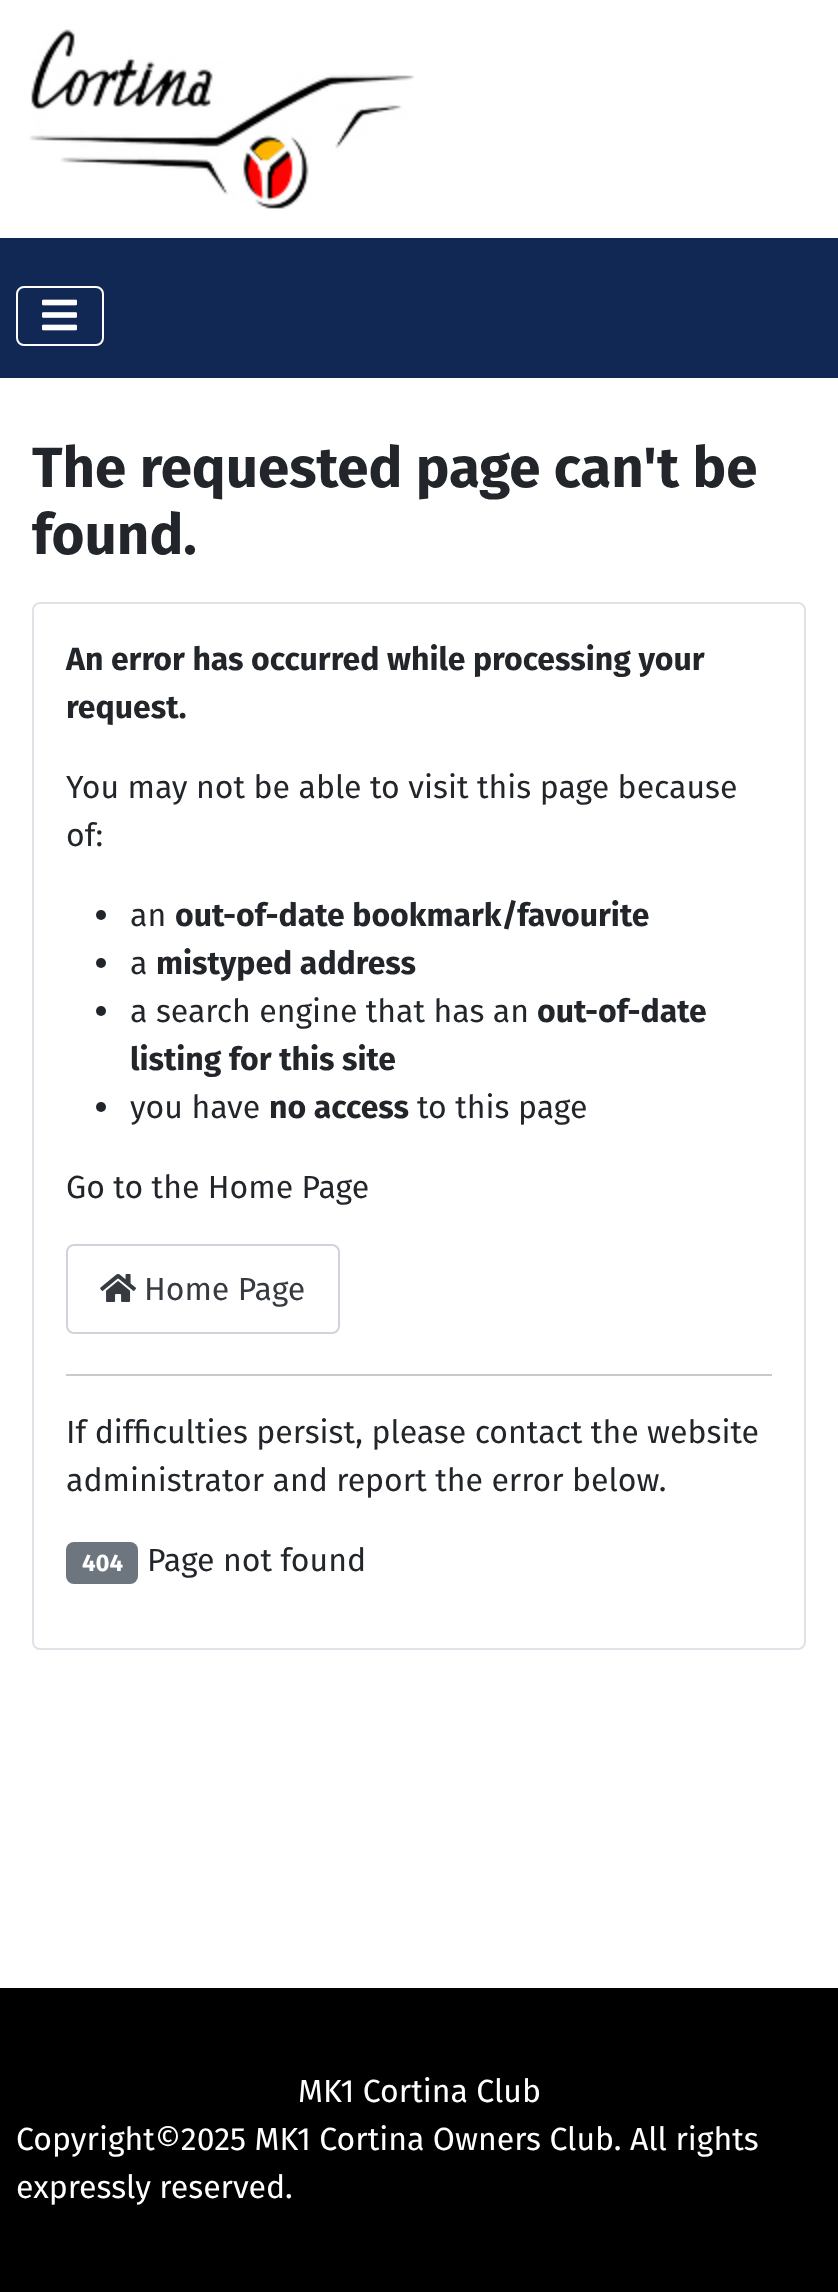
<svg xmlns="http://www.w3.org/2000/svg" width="838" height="2292">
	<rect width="100%" height="100%" fill="#FFFFFF" />
	<image x="29" y="29" width="386" height="180" href="assets/img1.png" />
	<rect x="0" y="238" width="838" height="140" fill="#112855" />
	<rect x="17" y="287" width="86" height="58" rx="7" fill="none" stroke="#FFFFFF" stroke-width="2" />
	<image x="42" y="299" width="35" height="32" href="assets/img2.png" />
	<g font-family="Fira Sans" font-size="56.5" font-weight="700" fill="#22262A">
		<text x="32" y="487">The requested page can't be</text>
		<text x="32" y="554">found.</text>
	</g>
	<rect x="33" y="603" width="772" height="1046" rx="7" fill="none" stroke="#DFE3E7" stroke-width="2" />
	<g font-family="Fira Sans" font-size="32" font-weight="700" fill="#22262A">
		<text x="66" y="670">An error has occurred while processing your</text>
		<text x="66" y="718">request.</text>
	</g>
	<g font-family="Fira Sans" font-size="32" fill="#22262A">
		<text x="66" y="798">You may not be able to visit this page because</text>
		<text x="66" y="846">of:</text>
	</g>
	<circle cx="101" cy="915" r="5" fill="#22262A" />
	<text x="130" y="926" font-family="Fira Sans" font-size="32" fill="#22262A">an</text>
	<text x="175" y="926" font-family="Fira Sans" font-size="32" font-weight="700" fill="#22262A">out-of-date bookmark/favourite</text>
	<circle cx="101" cy="963" r="5" fill="#22262A" />
	<text x="130" y="974" font-family="Fira Sans" font-size="32" fill="#22262A">a</text>
	<text x="156" y="974" font-family="Fira Sans" font-size="32" font-weight="700" fill="#22262A">mistyped address</text>
	<circle cx="101" cy="1011" r="5" fill="#22262A" />
	<text x="130" y="1022" font-family="Fira Sans" font-size="32" fill="#22262A">a search engine that has an</text>
	<g font-family="Fira Sans" font-size="32" font-weight="700" fill="#22262A">
		<text x="537" y="1022">out-of-date</text>
		<text x="130" y="1070">listing for this site</text>
	</g>
	<circle cx="101" cy="1107" r="5" fill="#22262A" />
	<text x="130" y="1118" font-family="Fira Sans" font-size="32" fill="#22262A">you have</text>
	<text x="269" y="1118" font-family="Fira Sans" font-size="32" font-weight="700" fill="#22262A">no access</text>
	<g font-family="Fira Sans" font-size="32" fill="#22262A">
		<text x="417" y="1118">to this page</text>
		<text x="66" y="1198">Go to the Home Page</text>
	</g>
	<rect x="67" y="1245" width="272" height="88" rx="7" fill="none" stroke="#CED4DA" stroke-width="2" />
	<image x="100" y="1274" width="36" height="28" href="assets/img3.png" />
	<text x="144" y="1300" font-family="Fira Sans" font-size="32" fill="#353B41">Home Page</text>
	<rect x="66" y="1374" width="706" height="2" fill="#C8C9CA" />
	<g font-family="Fira Sans" font-size="32" fill="#22262A">
		<text x="66" y="1443">If difficulties persist, please contact the website</text>
		<text x="66" y="1491">administrator and report the error below.</text>
	</g>
	<rect x="66" y="1542" width="72" height="42" rx="8" fill="#6D757E" />
	<text x="82" y="1571" font-family="Fira Sans" font-size="24" font-weight="700" fill="#FFFFFF">404</text>
	<text x="147" y="1571" font-family="Fira Sans" font-size="32" fill="#22262A">Page not found</text>
	<rect x="0" y="1988" width="838" height="304" fill="#000000" />
	<g font-family="Fira Sans" font-size="32" fill="#FFFFFF">
		<text x="298" y="2102">MK1 Cortina Club</text>
		<text x="16" y="2150">Copyright©2025 MK1 Cortina Owners Club. All rights</text>
		<text x="16" y="2198">expressly reserved.</text>
	</g>
</svg>
